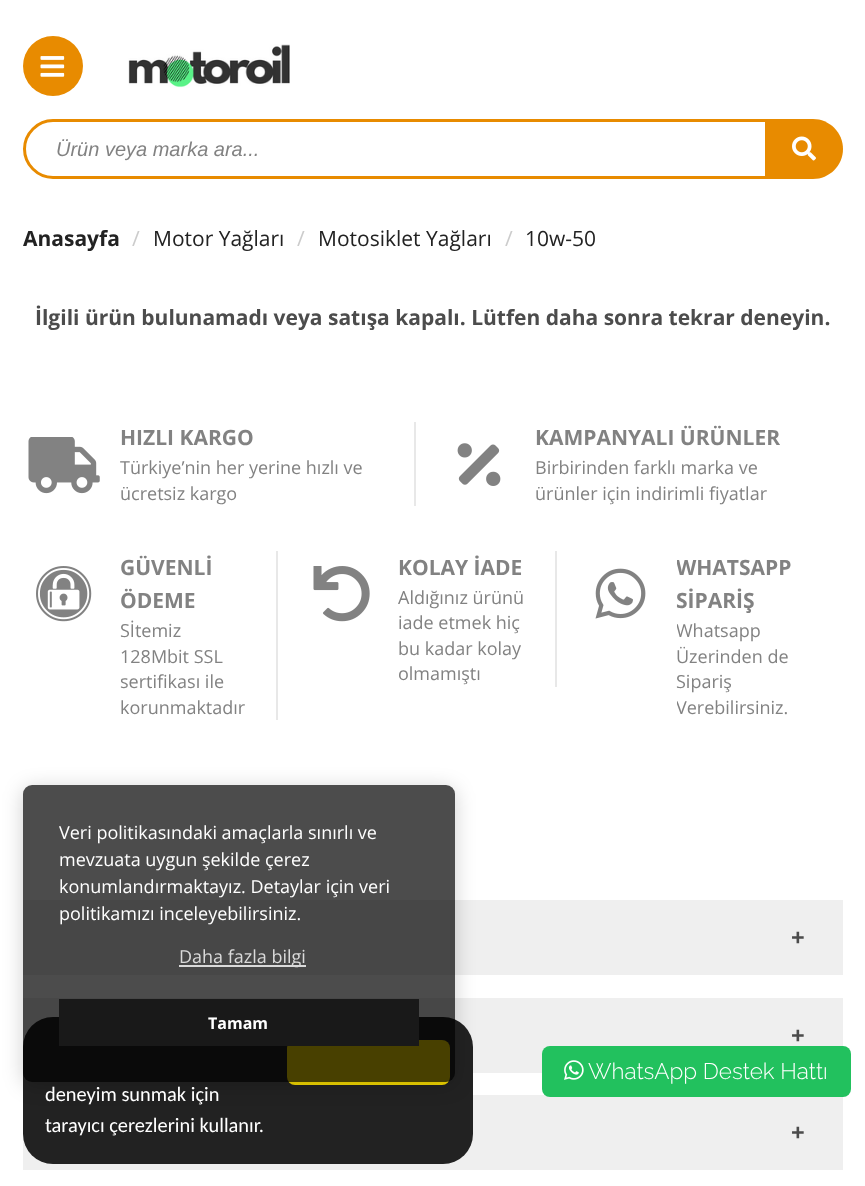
<svg xmlns="http://www.w3.org/2000/svg" width="865" height="1186">
	<defs>
		<clipPath id="clip1"><rect x="677" y="551" width="133" height="67" /></clipPath>
		<clipPath id="clip2"><rect x="677" y="618" width="133" height="102" /></clipPath>
		<clipPath id="clip3"><path d="M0 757H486V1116H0ZM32 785H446C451 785 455 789 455 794V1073C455 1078 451 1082 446 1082H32C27 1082 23 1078 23 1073V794C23 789 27 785 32 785Z" clip-rule="evenodd" /></clipPath>
	</defs>
	<rect width="100%" height="100%" fill="#FFFFFF" />
	<circle cx="53" cy="66" r="30" fill="#E88B00" />
	<image x="40" y="56" width="25" height="21" href="assets/img1.png" />
	<image x="128" y="44" width="162" height="44" href="assets/img2.png" />
	<path d="M53 120.5H766.5V177.5H53C37.5 177.5 24.5 164.5 24.5 149C24.5 133.5 37.5 120.5 53 120.5Z" fill="none" stroke="#E88B00" stroke-width="3" />
	<text x="56" y="156" font-family="Liberation Sans" font-size="20" font-style="italic" fill="#828282">Ürün veya marka ara...</text>
	<path d="M768 119H813C829.5 119 843 132.5 843 149C843 165.5 829.5 179 813 179H768Z" fill="#E88B00" />
	<image x="792" y="136" width="24" height="25" href="assets/img3.png" />
	<text x="23" y="246" font-family="Open Sans" font-size="21" font-weight="700" fill="#222222">Anasayfa</text>
	<text x="132" y="246" font-family="Open Sans" font-size="21" fill="#CCCCCC">/</text>
	<text x="153" y="246" font-family="Open Sans" font-size="21" fill="#222222">Motor Yağları</text>
	<text x="297" y="246" font-family="Open Sans" font-size="21" fill="#CCCCCC">/</text>
	<text x="318" y="246" font-family="Open Sans" font-size="21" fill="#222222">Motosiklet Yağları</text>
	<text x="505" y="246" font-family="Open Sans" font-size="21" fill="#CCCCCC">/</text>
	<text x="525" y="246" font-family="Open Sans" font-size="21" fill="#222222">10w-50</text>
	<text x="35" y="325" font-family="Open Sans" font-size="21" font-weight="700" fill="#4C4C4C">İlgili ürün bulunamadı veya satışa kapalı. Lütfen daha sonra tekrar deneyin.</text>
	<rect x="414" y="422" width="2" height="84" fill="#E8E8E8" />
	<image x="28" y="437" width="72" height="57" href="assets/img4.png" />
	<text x="120" y="445" font-family="Open Sans" font-size="21" font-weight="700" fill="#828282">HIZLI KARGO</text>
	<g font-family="Open Sans" font-size="18" fill="#828282">
		<text x="120" y="474">Türkiye’nin her yerine hızlı ve</text>
		<text x="120" y="500">ücretsiz kargo</text>
	</g>
	<text x="535" y="445" font-family="Open Sans" font-size="21" font-weight="700" fill="#828282">KAMPANYALI ÜRÜNLER</text>
	<image x="457" y="443" width="44" height="43" href="assets/img5.png" />
	<g font-family="Open Sans" font-size="18" fill="#828282">
		<text x="535" y="474">Birbirinden farklı marka ve</text>
		<text x="535" y="500">ürünler için indirimli fiyatlar</text>
	</g>
	<rect x="276" y="551" width="2" height="169" fill="#E8E8E8" />
	<image x="36" y="566" width="56" height="56" href="assets/img6.png" />
	<g font-family="Open Sans" font-size="21" font-weight="700" fill="#828282">
		<text x="120" y="575">GÜVENLİ</text>
		<text x="120" y="608">ÖDEME</text>
	</g>
	<g font-family="Open Sans" font-size="18" fill="#828282">
		<text x="120" y="637">Sİtemiz</text>
		<text x="120" y="663">128Mbit SSL</text>
		<text x="120" y="688">sertifikası ile</text>
		<text x="120" y="714">korunmaktadır</text>
	</g>
	<rect x="555" y="551" width="2" height="136" fill="#E8E8E8" />
	<image x="313" y="566" width="57" height="56" href="assets/img7.png" />
	<text x="398" y="575" font-family="Open Sans" font-size="21" font-weight="700" fill="#828282">KOLAY İADE</text>
	<g font-family="Open Sans" font-size="18" fill="#828282">
		<text x="398" y="604">Aldığınız ürünü</text>
		<text x="398" y="629">iade etmek hiç</text>
		<text x="398" y="655">bu kadar kolay</text>
		<text x="398" y="680">olmamıştı</text>
	</g>
	<image x="595" y="568" width="51" height="51" href="assets/img8.png" />
	<g clip-path="url(#clip1)">
		<text x="676" y="575" font-family="Open Sans" font-size="21" font-weight="700" fill="#828282">WHATSAPP</text>
	</g>
	<text x="676" y="608" font-family="Open Sans" font-size="21" font-weight="700" fill="#828282">SİPARİŞ</text>
	<g clip-path="url(#clip2)">
		<text x="676" y="637" font-family="Open Sans" font-size="18" fill="#828282">Whatsapp</text>
	</g>
	<g font-family="Open Sans" font-size="18" fill="#828282">
		<text x="676" y="663">Üzerinden de</text>
		<text x="676" y="688">Sipariş</text>
	</g>
	<g clip-path="url(#clip2)">
		<text x="676" y="714" font-family="Open Sans" font-size="18" fill="#828282">Verebilirsiniz.</text>
	</g>
	<rect x="23" y="900" width="820" height="75" fill="#EFEFEF" />
	<rect x="23" y="998" width="820" height="75" fill="#EFEFEF" />
	<rect x="23" y="1095" width="820" height="75" fill="#EFEFEF" />
	<rect x="23" y="1017" width="450" height="147" rx="30" fill="#222222" />
	<rect x="287" y="1040" width="163" height="45" rx="8" fill="#F1D600" />
	<g clip-path="url(#clip3)">
		<rect x="23" y="788" width="432" height="297" rx="9" fill="#000000" fill-opacity="0.19" filter="blur(10px)" />
	</g>
	<rect x="23" y="785" width="432" height="297" rx="9" fill="#000000" fill-opacity="0.7" />
	<g font-family="Open Sans" font-size="18" fill="#FFFFFF">
		<text x="59" y="839">Veri politikasındaki amaçlarla sınırlı ve</text>
		<text x="59" y="866">mevzuata uygun şekilde çerez</text>
		<text x="59" y="893">konumlandırmaktayız. Detaylar için veri</text>
		<text x="59" y="920">politikamızı inceleyebilirsiniz.</text>
	</g>
	<rect x="179" y="965" width="127" height="2" fill="#DADADA" />
	<text x="179" y="963" font-family="Open Sans" font-size="18" fill="#DADADA">Daha fazla bilgi</text>
	<rect x="59" y="999" width="360" height="47" fill="#191919" />
	<text x="208" y="1029" font-family="Open Sans" font-size="16" font-weight="700" fill="#FFFFFF">Tamam</text>
	<g font-family="Open Sans" font-size="24" font-weight="700" fill="#4C4C4C">
		<text x="791" y="946">+</text>
		<text x="791" y="1044">+</text>
		<text x="791" y="1141">+</text>
	</g>
	<rect x="542" y="1046" width="309" height="51" rx="8" fill="#22C15E" />
	<image x="564" y="1060" width="20" height="20" href="assets/img9.png" />
	<text x="588" y="1079" font-family="Raleway" font-size="22.5" font-weight="300" fill="#FFFFFF">WhatsApp Destek Hattı</text>
	<g font-family="Carlito" font-size="20.4" fill="#FFFFFF">
		<text x="45" y="1101">deneyim sunmak için</text>
		<text x="45" y="1132">tarayıcı çerezlerini kullanır.</text>
	</g>
</svg>
